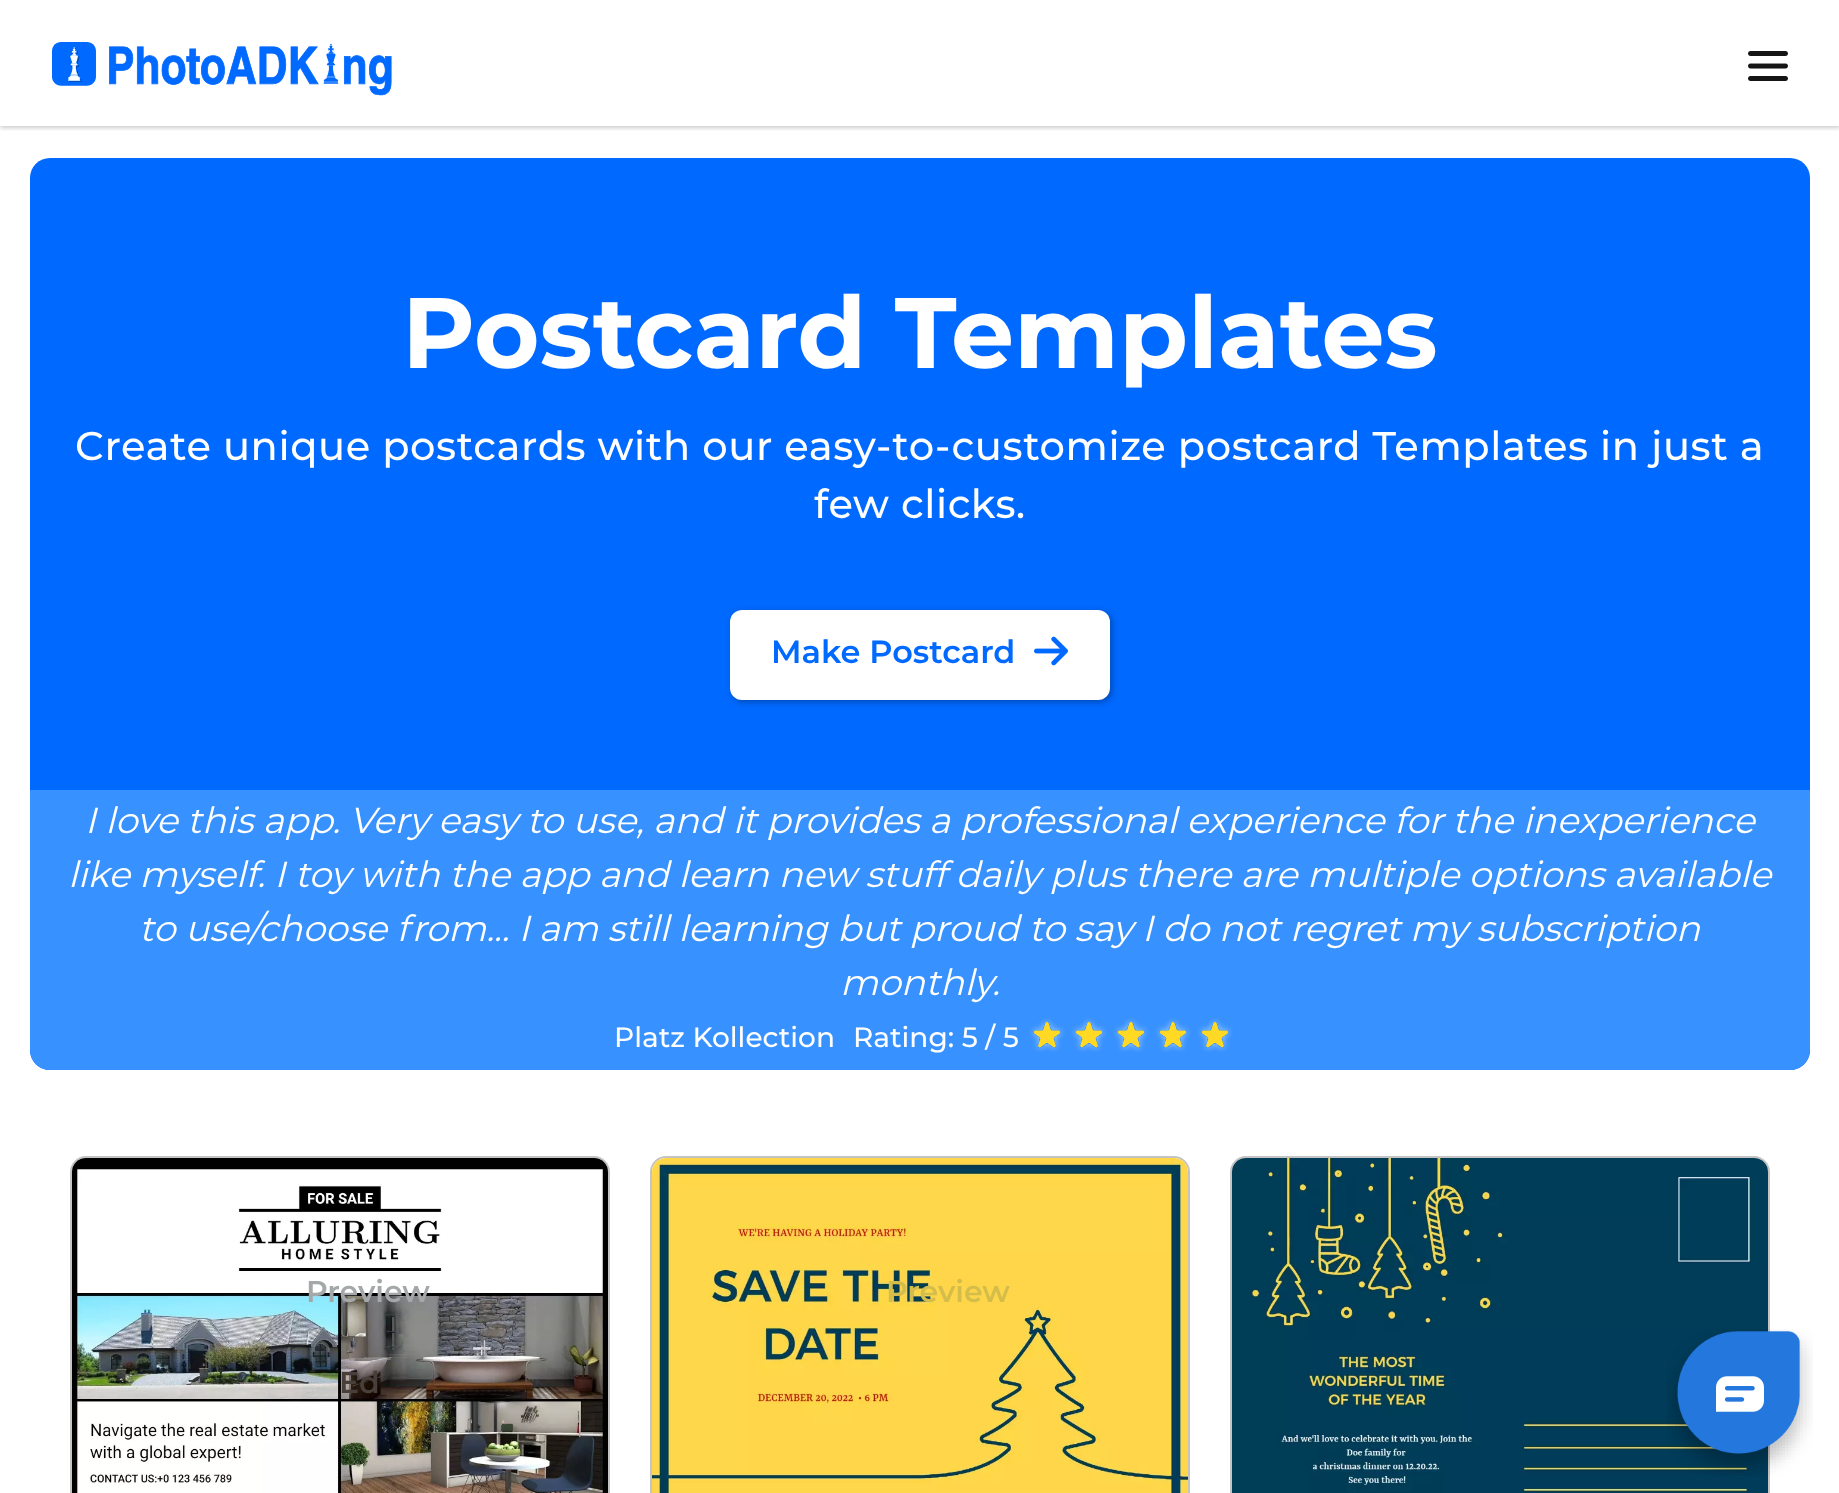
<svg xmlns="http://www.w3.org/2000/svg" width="1839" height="1493">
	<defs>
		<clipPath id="clip1"><rect x="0" y="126" width="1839" height="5" /></clipPath>
	</defs>
	<rect width="100%" height="100%" fill="#FFFFFF" />
	<rect x="30" y="158" width="1780" height="912" rx="20" fill="#0069FF" />
	<g clip-path="url(#clip1)">
		<rect x="0" y="2" width="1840" height="126" fill="#000000" fill-opacity="0.2" filter="blur(2px)" />
	</g>
	<image x="52" y="42" width="340" height="54" href="assets/img1.png" />
	<image x="1748" y="51" width="40" height="30" href="assets/img2.png" />
	<text x="402" y="368" font-family="Montserrat" font-size="100" font-weight="700" fill="#FFFFFF">Postcard Templates</text>
	<g font-family="Montserrat" font-size="40" font-weight="500" letter-spacing="0.6" fill="#FFFFFF">
		<text x="75" y="460">Create unique postcards with our easy-to-customize postcard Templates in just a</text>
		<text x="814" y="518">few clicks.</text>
	</g>
	<rect x="732" y="612" width="380" height="90" rx="12" fill="#000000" fill-opacity="0.3" filter="blur(3px)" />
	<rect x="730" y="610" width="380" height="90" rx="12" fill="#FFFFFF" />
	<text x="771" y="663" font-family="Montserrat" font-size="32" font-weight="600" fill="#0069FF">Make Postcard</text>
	<image x="1034" y="636" width="34" height="30" href="assets/img3.png" />
	<path d="M30 790H1810V1050C1810 1061 1801 1070 1790 1070H50C39 1070 30 1061 30 1050Z" fill="#3791FF" />
	<g font-family="Montserrat" font-size="36" font-style="italic" fill="#FFFFFF">
		<text x="85" y="833">I love this app. Very easy to use, and it provides a professional experience for the inexperience</text>
		<text x="68" y="887">like myself. I toy with the app and learn new stuff daily plus there are multiple options available</text>
		<text x="139" y="941">to use/choose from... I am still learning but proud to say I do not regret my subscription</text>
		<text x="840" y="995">monthly.</text>
	</g>
	<g font-family="Montserrat" font-size="28" font-weight="500" fill="#FFFFFF">
		<text x="614" y="1047">Platz Kollection</text>
		<text x="853" y="1047">Rating: 5 / 5</text>
	</g>
	<image x="1029" y="1018" width="36" height="34" href="assets/img4.png" />
	<image x="1071" y="1018" width="36" height="34" href="assets/img4.png" />
	<image x="1113" y="1018" width="36" height="34" href="assets/img4.png" />
	<image x="1155" y="1018" width="36" height="34" href="assets/img4.png" />
	<image x="1197" y="1018" width="36" height="34" href="assets/img4.png" />
	<rect x="71" y="1157" width="538" height="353" rx="15" fill="none" stroke="#C4C4C4" stroke-width="2" />
	<image x="72" y="1158" width="536" height="335" href="assets/img5.png" />
	<text x="306" y="1302" font-family="Montserrat" font-size="30" font-weight="600" fill="#A4A8A9">Preview</text>
	<text x="339" y="1393" font-family="Montserrat" font-size="30" font-weight="600" fill="#483F3A">Ed</text>
	<rect x="651" y="1157" width="538" height="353" rx="15" fill="none" stroke="#C4C4C4" stroke-width="2" />
	<image x="652" y="1158" width="536" height="335" href="assets/img6.png" />
	<text x="886" y="1302" font-family="Montserrat" font-size="30" font-weight="600" fill="#D5BD4C">Preview</text>
	<rect x="1231" y="1157" width="538" height="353" rx="15" fill="none" stroke="#C4C4C4" stroke-width="2" />
	<image x="1232" y="1158" width="536" height="335" href="assets/img7.png" />
	<image x="1666" y="1329" width="147" height="147" href="assets/img8.png" />
	<image x="1716" y="1376" width="48" height="36" href="assets/img9.png" />
</svg>
